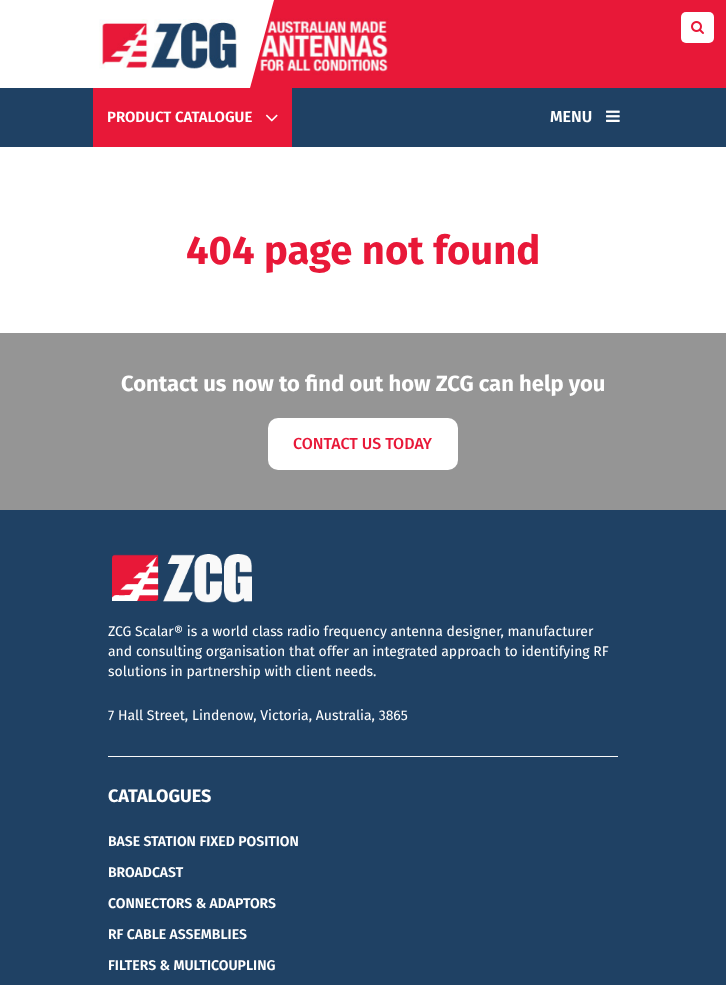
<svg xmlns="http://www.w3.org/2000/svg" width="726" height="985">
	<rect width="100%" height="100%" fill="#FFFFFF" />
	<rect x="250" y="0" width="476" height="88" fill="#E81838" />
	<image x="259" y="18" width="130" height="57" href="assets/img2.png" />
	<path d="M-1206 0H274L250 88H-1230Z" fill="#FFFFFF" />
	<image x="99" y="19" width="138" height="50" href="assets/img1.png" />
	<rect x="681" y="12" width="33" height="31" rx="5" fill="#FFFFFF" />
	<image x="691" y="21" width="13" height="13" href="assets/img3.png" />
	<rect x="0" y="88" width="726" height="59" fill="#1F4164" />
	<rect x="93" y="88" width="199" height="59" fill="#E81838" />
	<text x="107" y="122" font-family="Fira Sans" font-size="15" font-weight="600" fill="#FFFFFF">PRODUCT CATALOGUE</text>
	<image x="265" y="114" width="13" height="8" href="assets/img4.png" />
	<text x="550" y="122" font-family="Fira Sans" font-size="16" font-weight="600" fill="#FFFFFF">MENU</text>
	<image x="606" y="110" width="14" height="12" href="assets/img5.png" />
	<text x="186" y="264" font-family="Fira Sans" font-size="40" font-weight="700" fill="#E81838">404 page not found</text>
	<rect x="0" y="333" width="726" height="177" fill="#959595" />
	<text x="121" y="391" font-family="Fira Sans" font-size="22" font-weight="700" fill="#FFFFFF">Contact us now to find out how ZCG can help you</text>
	<rect x="268" y="418" width="190" height="52" rx="10" fill="#FFFFFF" />
	<text x="293" y="449" font-family="Fira Sans" font-size="16" font-weight="500" fill="#E81838">CONTACT US TODAY</text>
	<rect x="0" y="510" width="726" height="475" fill="#1F4164" />
	<image x="112" y="554" width="140" height="49" href="assets/img6.png" />
	<g font-family="Fira Sans" font-size="14" fill="#FFFFFF">
		<text x="108" y="636">ZCG Scalar® is a world class radio frequency antenna designer, manufacturer</text>
		<text x="108" y="656">and consulting organisation that offer an integrated approach to identifying RF</text>
		<text x="108" y="676">solutions in partnership with client needs.</text>
		<text x="108" y="720">7 Hall Street, Lindenow, Victoria, Australia, 3865</text>
	</g>
	<rect x="108" y="756" width="510" height="1" fill="#F9F9F9" />
	<text x="108" y="802" font-family="Fira Sans" font-size="18" font-weight="700" fill="#FFFFFF">CATALOGUES</text>
	<g font-family="Fira Sans" font-size="14" font-weight="600" fill="#FFFFFF">
		<text x="108" y="846">BASE STATION FIXED POSITION</text>
		<text x="108" y="877">BROADCAST</text>
		<text x="108" y="908">CONNECTORS &amp; ADAPTORS</text>
		<text x="108" y="939">RF CABLE ASSEMBLIES</text>
		<text x="108" y="970">FILTERS &amp; MULTICOUPLING</text>
	</g>
</svg>
